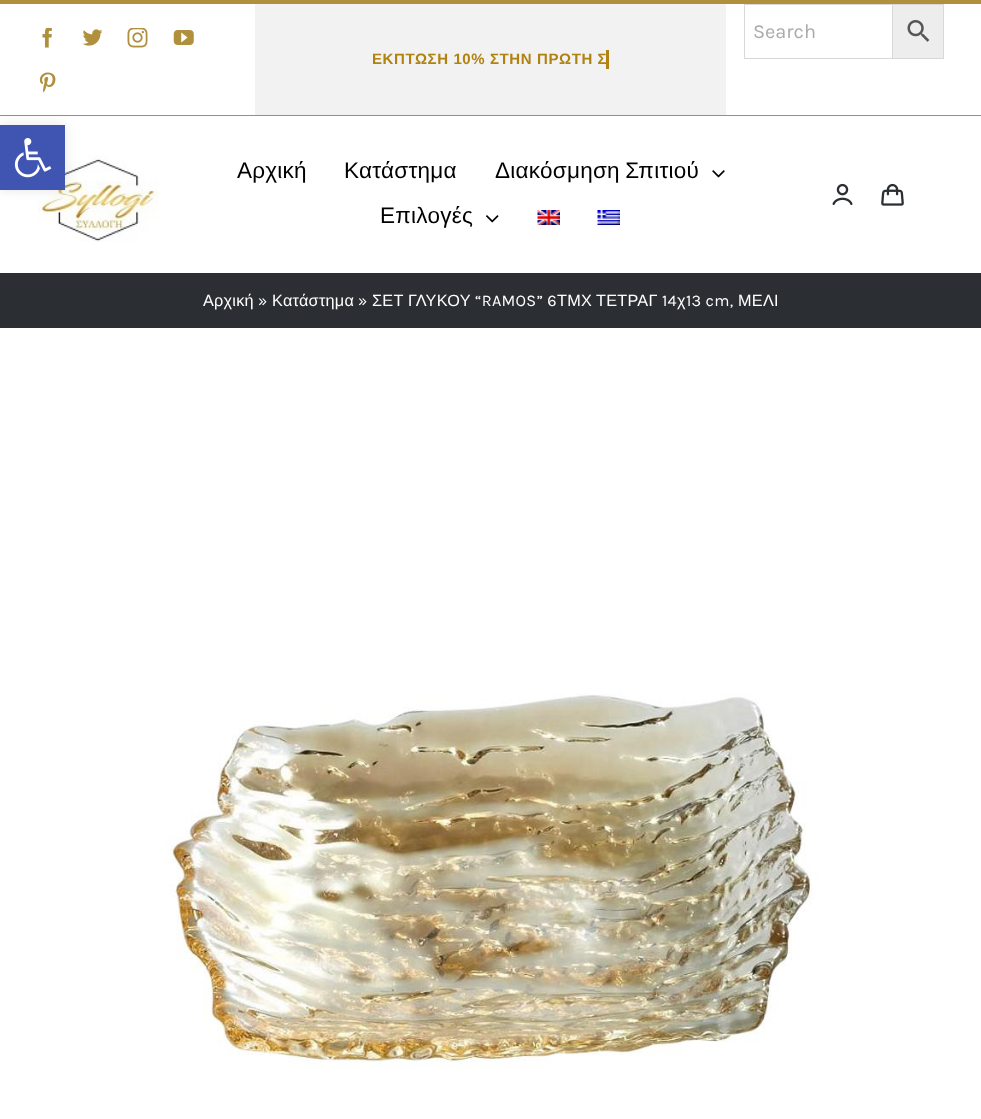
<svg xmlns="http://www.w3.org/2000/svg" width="981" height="1119">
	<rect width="100%" height="100%" fill="#FFFFFF" />
	<rect x="0" y="115" width="981" height="1" fill="#B0903D" />
	<image x="38" y="155" width="120" height="87" href="assets/img8.png" />
	<rect x="0" y="125" width="65" height="65" fill="#000000" fill-opacity="0.1" filter="blur(6px)" />
	<rect x="0" y="125" width="65" height="65" fill="#4054B2" />
	<image x="14" y="138" width="38" height="40" href="assets/img1.png" />
	<rect x="0" y="0" width="981" height="4" fill="#B0903D" />
	<image x="42" y="28" width="10" height="20" href="assets/img2.png" />
	<image x="82" y="29" width="21" height="17" href="assets/img3.png" />
	<image x="127" y="28" width="21" height="20" href="assets/img4.png" />
	<image x="173" y="30" width="21" height="15" href="assets/img5.png" />
	<image x="39" y="72" width="17" height="21" href="assets/img6.png" />
	<rect x="255" y="4" width="471" height="111" fill="#F2F2F2" />
	<text x="372" y="64" font-family="Liberation Sans" font-size="15" font-weight="700" letter-spacing="0.6" fill="#B08311">ΕΚΠΤΩΣΗ 10% ΣΤΗΝ ΠΡΩΤΗ Σ</text>
	<rect x="606" y="50" width="3" height="19" fill="#AF810C" fill-opacity="0.98" />
	<rect x="893" y="5" width="50" height="53" fill="#EDEDED" />
	<rect x="891.5" y="4.5" width="52" height="54" fill="none" stroke="#D8D8D8" />
	<rect x="891" y="5" width="1" height="53" fill="#FFFFFF" />
	<rect x="744.5" y="4.5" width="148" height="54" fill="none" stroke="#D8D8D8" />
	<text x="753" y="38" font-family="Karla" font-size="20" fill="#AAAAAA">Search</text>
	<image x="907" y="20" width="23" height="22" href="assets/img7.png" />
	<g font-family="Liberation Sans" font-size="22.5" letter-spacing="0.25" fill="#000000">
		<text x="237" y="178">Αρχική</text>
		<text x="344" y="178">Κατάστημα</text>
		<text x="495" y="178" word-spacing="-1">Διακόσμηση Σπιτιού</text>
	</g>
	<image x="712" y="170" width="13" height="8" href="assets/img9.png" />
	<text x="380" y="223" font-family="Liberation Sans" font-size="22.5" letter-spacing="0.25" fill="#000000">Επιλογές</text>
	<image x="486" y="215" width="13" height="8" href="assets/img10.png" />
	<image x="537" y="210" width="23" height="15" href="assets/img11.png" />
	<image x="597" y="210" width="23" height="15" href="assets/img12.png" />
	<image x="832" y="183" width="21" height="22" href="assets/img13.png" />
	<image x="881" y="183" width="23" height="23" href="assets/img14.png" />
	<rect x="0" y="273" width="981" height="55" fill="#2B2E32" />
	<text x="203" y="306" font-family="Liberation Sans" font-size="16.25" letter-spacing="0.25" fill="#FFFFFF">Αρχική</text>
	<text x="258" y="306" font-family="Karla" font-size="16.25" letter-spacing="0.25" fill="#FFFFFF">»</text>
	<text x="272" y="306" font-family="Liberation Sans" font-size="16.25" letter-spacing="0.25" fill="#FFFFFF">Κατάστημα</text>
	<text x="358" y="306" font-family="Karla" font-size="16.25" letter-spacing="0.25" fill="#FFFFFF">»</text>
	<g font-family="Liberation Sans" font-size="16.25" letter-spacing="0.25" fill="#FFFFFF">
		<text x="372" y="306">ΣΕΤ</text>
		<text x="408" y="306">ΓΛΥΚΟΥ</text>
	</g>
	<text x="475" y="306" font-family="Karla" font-size="16.25" letter-spacing="0.25" fill="#FFFFFF">“RAMOS” 6</text>
	<g font-family="Liberation Sans" font-size="16.25" letter-spacing="0.25" fill="#FFFFFF">
		<text x="557" y="306">ΤΜΧ</text>
		<text x="596" y="306">ΤΕΤΡΑΓ</text>
	</g>
	<text x="662" y="306" font-family="Karla" font-size="16.25" letter-spacing="0.25" fill="#FFFFFF">14</text>
	<text x="677" y="306" font-family="Liberation Sans" font-size="16.25" letter-spacing="0.25" fill="#FFFFFF">χ</text>
	<text x="686" y="306" font-family="Karla" font-size="16.25" letter-spacing="0.25" fill="#FFFFFF">13 cm,</text>
	<text x="738" y="306" font-family="Liberation Sans" font-size="16.25" letter-spacing="0.25" fill="#FFFFFF">ΜΕΛΙ</text>
	<image x="166" y="693" width="653" height="376" href="assets/img15.png" />
</svg>
